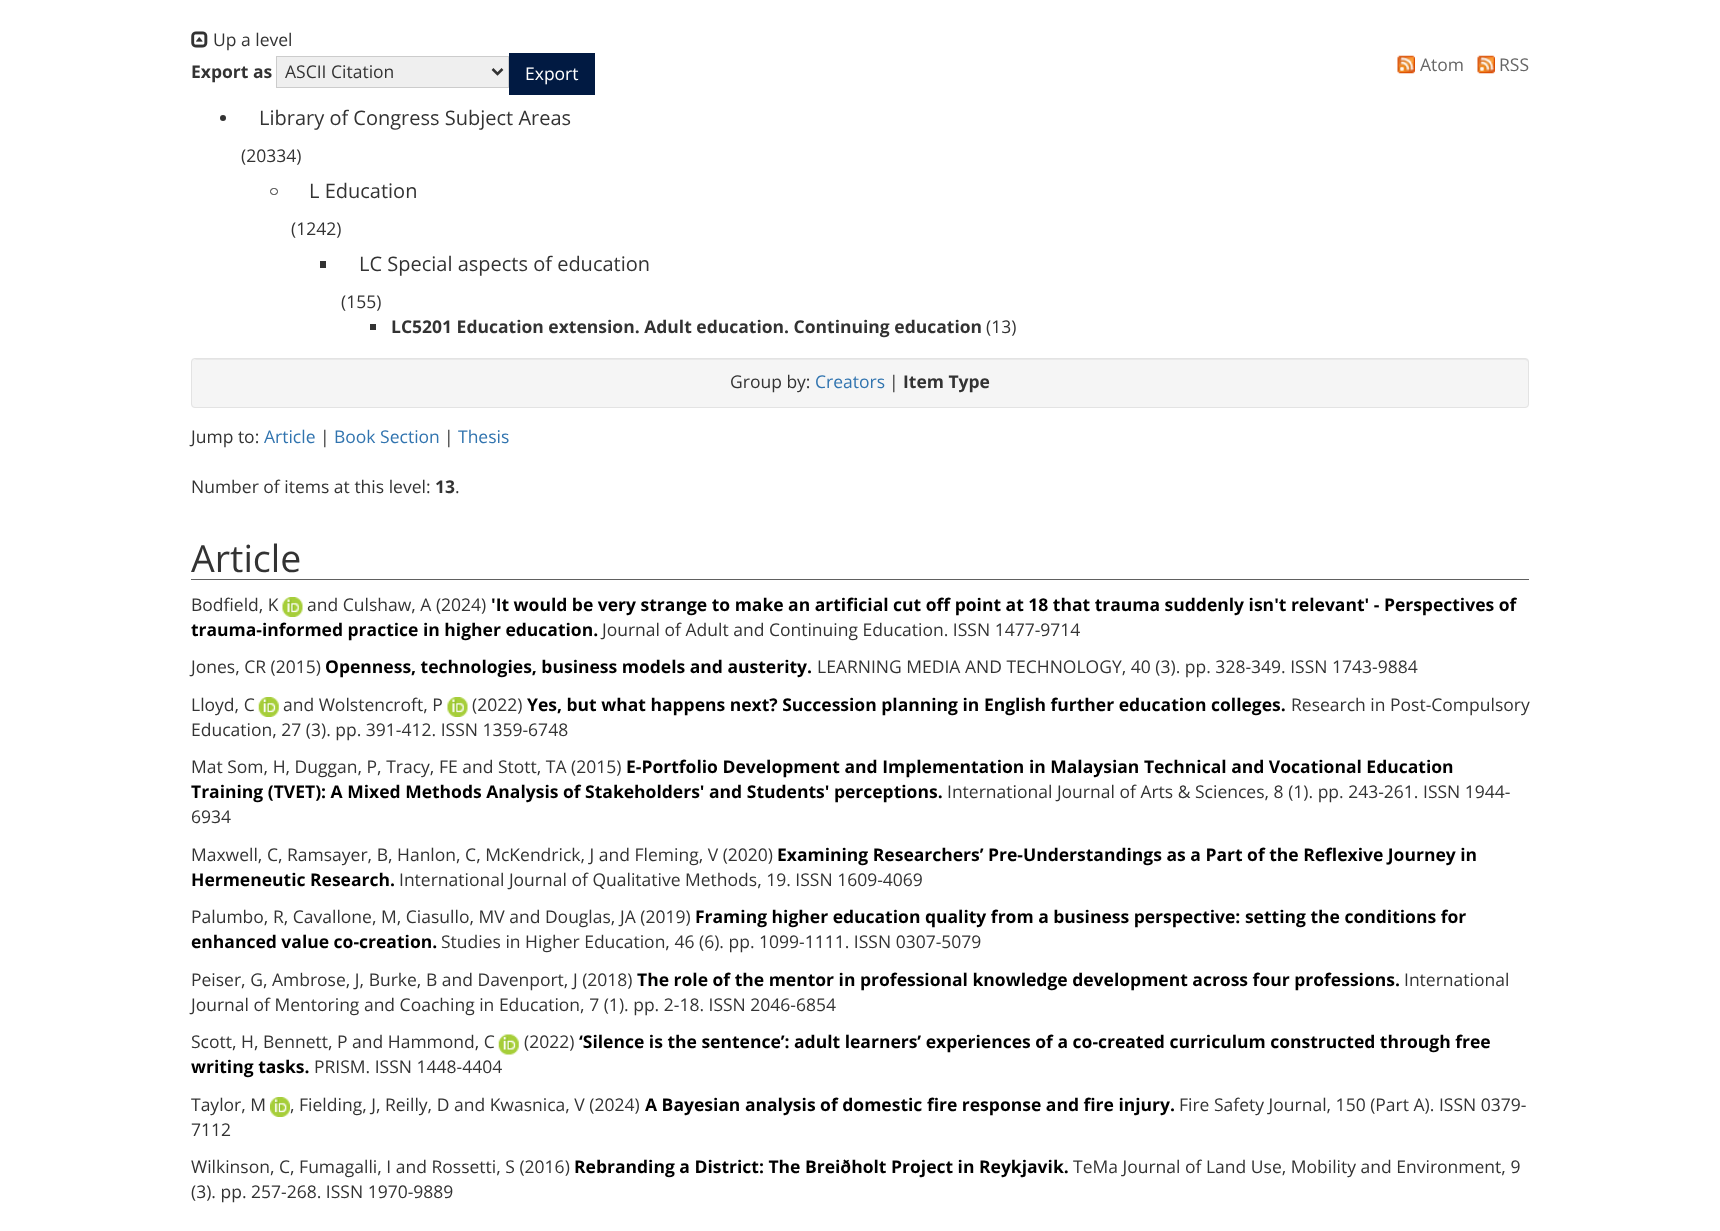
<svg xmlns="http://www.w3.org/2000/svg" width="1720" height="1231">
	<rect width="100%" height="100%" fill="#FFFFFF" />
	<image x="191" y="31" width="17" height="17" href="assets/img1.png" />
	<text x="213" y="46" font-family="Open Sans" font-size="17.5" fill="#333333">Up a level</text>
	<text x="191" y="78" font-family="Open Sans" font-size="17.5" font-weight="700" fill="#333333">Export as</text>
	<rect x="276.5" y="56.5" width="232" height="31" fill="#EFEFEF" stroke="#CCCCCC" />
	<path d="M492.5 69L497.5 74L502.5 69" fill="none" stroke="#333333" stroke-width="2.5" />
	<text x="285" y="78" font-family="Open Sans" font-size="17.5" fill="#333333">ASCII Citation</text>
	<rect x="509" y="53" width="86" height="42" fill="#011A42" />
	<text x="525" y="80" font-family="Open Sans" font-size="17.5" fill="#FFFFFF">Export</text>
	<image x="1397" y="55" width="18" height="19" href="assets/img2.png" />
	<text x="1420" y="71" font-family="Open Sans" font-size="17.5" fill="#666666">Atom</text>
	<image x="1477" y="55" width="18" height="19" href="assets/img2.png" />
	<text x="1499" y="71" font-family="Open Sans" font-size="17.5" fill="#666666">RSS</text>
	<circle cx="223" cy="118" r="3" fill="#333333" />
	<text x="259" y="125" font-family="Open Sans" font-size="20" fill="#333333">Library of Congress Subject Areas</text>
	<text x="241" y="162" font-family="Open Sans" font-size="17.5" fill="#333333">(20334)</text>
	<rect x="270.5" y="188.5" width="7" height="6" rx="3" fill="none" stroke="#333333" />
	<text x="309" y="198" font-family="Open Sans" font-size="20" fill="#333333">L Education</text>
	<text x="291" y="235" font-family="Open Sans" font-size="17.5" fill="#333333">(1242)</text>
	<rect x="320" y="261" width="6" height="7" fill="#333333" />
	<text x="359" y="271" font-family="Open Sans" font-size="20" fill="#333333">LC Special aspects of education</text>
	<text x="341" y="308" font-family="Open Sans" font-size="17.5" fill="#333333">(155)</text>
	<rect x="370" y="324" width="6" height="6" fill="#333333" />
	<text x="391" y="333" font-family="Open Sans" font-size="17.5" font-weight="700" fill="#333333">LC5201 Education extension. Adult education. Continuing education</text>
	<text x="986" y="333" font-family="Open Sans" font-size="17.5" fill="#333333">(13)</text>
	<rect x="191" y="358" width="1338" height="50" rx="4" fill="#F5F5F5" />
	<path d="M195 360H1525C1526 360 1528 361 1528 362C1528 360 1527 359 1526 359H196L193 361Z" fill="#E9E9E9" />
	<rect x="191.5" y="358.5" width="1337" height="49" rx="3.5" fill="none" stroke="#E3E3E3" />
	<text x="730" y="388" font-family="Open Sans" font-size="17.5" fill="#333333">Group by:</text>
	<text x="815" y="388" font-family="Open Sans" font-size="17.5" fill="#3174AF">Creators</text>
	<text x="889" y="388" font-family="Open Sans" font-size="17.5" fill="#333333">|</text>
	<text x="903" y="388" font-family="Open Sans" font-size="17.5" font-weight="700" fill="#333333">Item Type</text>
	<text x="191" y="443" font-family="Open Sans" font-size="17.5" fill="#333333">Jump to:</text>
	<text x="264" y="443" font-family="Open Sans" font-size="17.5" fill="#3174AF">Article</text>
	<text x="320" y="443" font-family="Open Sans" font-size="17.5" fill="#333333">|</text>
	<text x="334" y="443" font-family="Open Sans" font-size="17.5" fill="#3174AF">Book Section</text>
	<text x="444" y="443" font-family="Open Sans" font-size="17.5" fill="#333333">|</text>
	<text x="458" y="443" font-family="Open Sans" font-size="17.5" fill="#3174AF">Thesis</text>
	<text x="191" y="493" font-family="Open Sans" font-size="17.5" fill="#333333">Number of items at this level:</text>
	<text x="435" y="493" font-family="Open Sans" font-size="17.5" font-weight="700" fill="#333333">13</text>
	<text x="455" y="493" font-family="Open Sans" font-size="17.5" fill="#333333">.</text>
	<rect x="191" y="579" width="1338" height="1" fill="#606060" />
	<text x="191" y="572" font-family="Open Sans" font-size="37.5" fill="#333333">Article</text>
	<text x="191" y="611" font-family="Open Sans" font-size="17.5" fill="#333333">Bodfield, K</text>
	<image x="282" y="597" width="21" height="20" href="assets/img3.png" />
	<text x="307" y="611" font-family="Open Sans" font-size="17.5" fill="#333333">and Culshaw, A (2024)</text>
	<g font-family="Open Sans" font-size="17.5" font-weight="700" fill="#000000">
		<text x="491" y="611">'It would be very strange to make an artificial cut off point at 18 that trauma suddenly isn't relevant' - Perspectives of</text>
		<text x="191" y="636">trauma-informed practice in higher education.</text>
	</g>
	<g font-family="Open Sans" font-size="17.5" fill="#333333">
		<text x="602" y="636">Journal of Adult and Continuing Education. ISSN 1477-9714</text>
		<text x="191" y="673">Jones, CR (2015)</text>
	</g>
	<text x="325" y="673" font-family="Open Sans" font-size="17.5" font-weight="700" fill="#000000">Openness, technologies, business models and austerity.</text>
	<g font-family="Open Sans" font-size="17.5" fill="#333333">
		<text x="817" y="673">LEARNING MEDIA AND TECHNOLOGY, 40 (3). pp. 328-349. ISSN 1743-9884</text>
		<text x="191" y="711">Lloyd, C</text>
	</g>
	<image x="258" y="697" width="21" height="20" href="assets/img4.png" />
	<text x="283" y="711" font-family="Open Sans" font-size="17.5" fill="#333333">and Wolstencroft, P</text>
	<image x="447" y="697" width="21" height="20" href="assets/img5.png" />
	<text x="472" y="711" font-family="Open Sans" font-size="17.5" fill="#333333">(2022)</text>
	<text x="527" y="711" font-family="Open Sans" font-size="17.5" font-weight="700" fill="#000000">Yes, but what happens next? Succession planning in English further education colleges.</text>
	<g font-family="Open Sans" font-size="17.5" fill="#333333">
		<text x="1291" y="711">Research in Post-Compulsory</text>
		<text x="191" y="736">Education, 27 (3). pp. 391-412. ISSN 1359-6748</text>
		<text x="191" y="773">Mat Som, H, Duggan, P, Tracy, FE and Stott, TA (2015)</text>
	</g>
	<g font-family="Open Sans" font-size="17.5" font-weight="700" fill="#000000">
		<text x="626" y="773">E-Portfolio Development and Implementation in Malaysian Technical and Vocational Education</text>
		<text x="191" y="798">Training (TVET): A Mixed Methods Analysis of Stakeholders' and Students' perceptions.</text>
	</g>
	<g font-family="Open Sans" font-size="17.5" fill="#333333">
		<text x="947" y="798">International Journal of Arts &amp; Sciences, 8 (1). pp. 243-261. ISSN 1944-</text>
		<text x="191" y="823">6934</text>
		<text x="191" y="861">Maxwell, C, Ramsayer, B, Hanlon, C, McKendrick, J and Fleming, V (2020)</text>
	</g>
	<g font-family="Open Sans" font-size="17.5" font-weight="700" fill="#000000">
		<text x="777" y="861">Examining Researchers’ Pre-Understandings as a Part of the Reflexive Journey in</text>
		<text x="191" y="886">Hermeneutic Research.</text>
	</g>
	<g font-family="Open Sans" font-size="17.5" fill="#333333">
		<text x="399" y="886">International Journal of Qualitative Methods, 19. ISSN 1609-4069</text>
		<text x="191" y="923">Palumbo, R, Cavallone, M, Ciasullo, MV and Douglas, JA (2019)</text>
	</g>
	<g font-family="Open Sans" font-size="17.5" font-weight="700" fill="#000000">
		<text x="695" y="923">Framing higher education quality from a business perspective: setting the conditions for</text>
		<text x="191" y="948">enhanced value co-creation.</text>
	</g>
	<g font-family="Open Sans" font-size="17.5" fill="#333333">
		<text x="441" y="948">Studies in Higher Education, 46 (6). pp. 1099-1111. ISSN 0307-5079</text>
		<text x="191" y="986">Peiser, G, Ambrose, J, Burke, B and Davenport, J (2018)</text>
	</g>
	<text x="637" y="986" font-family="Open Sans" font-size="17.5" font-weight="700" fill="#000000">The role of the mentor in professional knowledge development across four professions.</text>
	<g font-family="Open Sans" font-size="17.5" fill="#333333">
		<text x="1404" y="986">International</text>
		<text x="191" y="1011">Journal of Mentoring and Coaching in Education, 7 (1). pp. 2-18. ISSN 2046-6854</text>
		<text x="191" y="1048">Scott, H, Bennett, P and Hammond, C</text>
	</g>
	<image x="498" y="1034" width="21" height="21" href="assets/img6.png" />
	<text x="524" y="1048" font-family="Open Sans" font-size="17.5" fill="#333333">(2022)</text>
	<g font-family="Open Sans" font-size="17.5" font-weight="700" fill="#000000">
		<text x="579" y="1048">‘Silence is the sentence’: adult learners’ experiences of a co-created curriculum constructed through free</text>
		<text x="191" y="1073">writing tasks.</text>
	</g>
	<g font-family="Open Sans" font-size="17.5" fill="#333333">
		<text x="314" y="1073">PRISM. ISSN 1448-4404</text>
		<text x="191" y="1111">Taylor, M</text>
	</g>
	<image x="270" y="1097" width="20" height="20" href="assets/img7.png" />
	<text x="290" y="1111" font-family="Open Sans" font-size="17.5" fill="#333333">, Fielding, J, Reilly, D and Kwasnica, V (2024)</text>
	<text x="645" y="1111" font-family="Open Sans" font-size="17.5" font-weight="700" fill="#000000">A Bayesian analysis of domestic fire response and fire injury.</text>
	<g font-family="Open Sans" font-size="17.5" fill="#333333">
		<text x="1179" y="1111">Fire Safety Journal, 150 (Part A). ISSN 0379-</text>
		<text x="191" y="1136">7112</text>
		<text x="191" y="1173">Wilkinson, C, Fumagalli, I and Rossetti, S (2016)</text>
	</g>
	<text x="574" y="1173" font-family="Open Sans" font-size="17.5" font-weight="700" fill="#000000">Rebranding a District: The Breiðholt Project in Reykjavik.</text>
	<g font-family="Open Sans" font-size="17.5" fill="#333333">
		<text x="1073" y="1173">TeMa Journal of Land Use, Mobility and Environment, 9</text>
		<text x="191" y="1198">(3). pp. 257-268. ISSN 1970-9889</text>
	</g>
</svg>
